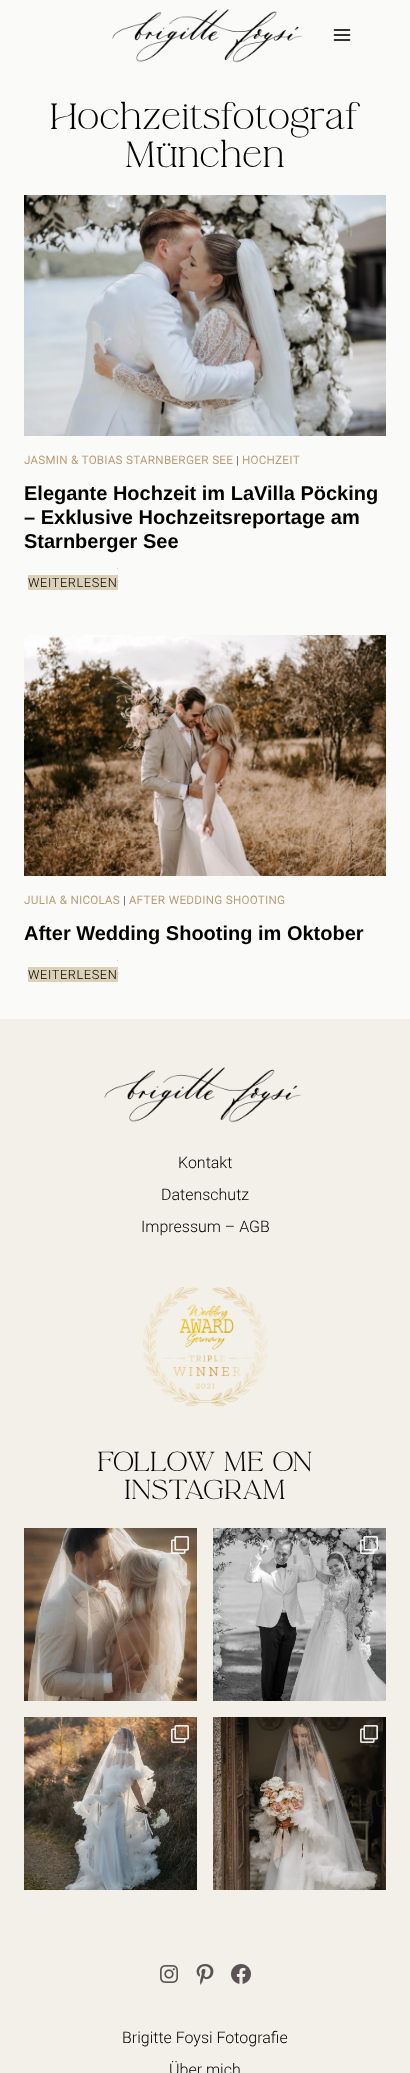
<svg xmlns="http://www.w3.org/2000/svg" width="410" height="2073">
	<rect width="100%" height="100%" fill="#FAFAF8" />
	<image x="112" y="9" width="191" height="54" href="assets/img1.png" />
	<image x="333" y="29" width="18" height="12" href="assets/img2.png" />
	<g font-family="'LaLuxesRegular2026'" font-size="32" fill="#000000">
		<text x="50" y="129">Hochzeitsfotograf</text>
		<text x="125" y="167">München</text>
	</g>
	<image x="24" y="195" width="362" height="241" href="assets/img3.png" />
	<text x="24" y="464" font-family="Roboto" font-size="11.25" font-weight="700" letter-spacing="0.55" fill="#BA9872">JASMIN &amp; TOBIAS STARNBERGER SEE</text>
	<text x="236" y="464" font-family="Roboto" font-size="11.25" font-weight="300" letter-spacing="0.55" fill="#000000">|</text>
	<text x="242" y="464" font-family="Roboto" font-size="11.25" font-weight="700" letter-spacing="0.55" fill="#BA9872">HOCHZEIT</text>
	<g font-family="Liberation Sans" font-size="20" font-weight="700" fill="#000000">
		<text x="24" y="500">Elegante Hochzeit im LaVilla Pöcking</text>
		<text x="24" y="524">– Exklusive Hochzeitsreportage am</text>
		<text x="24" y="548">Starnberger See</text>
	</g>
	<rect x="28" y="575" width="90" height="15" fill="#DCD1B8" />
	<text x="28" y="587" font-family="Roboto" font-size="12.75" font-weight="300" letter-spacing="0.6" fill="#000000">WEITERLESEN</text>
	<rect x="117" y="568" width="1" height="1" fill="#DCD1B8" />
	<image x="24" y="635" width="362" height="241" href="assets/img4.png" />
	<text x="24" y="904" font-family="Roboto" font-size="11.25" font-weight="700" letter-spacing="0.55" fill="#BA9872">JULIA &amp; NICOLAS</text>
	<text x="123" y="904" font-family="Roboto" font-size="11.25" font-weight="300" letter-spacing="0.55" fill="#000000">|</text>
	<text x="129" y="904" font-family="Roboto" font-size="11.25" font-weight="700" letter-spacing="0.55" fill="#BA9872">AFTER WEDDING SHOOTING</text>
	<text x="24" y="940" font-family="Liberation Sans" font-size="20" font-weight="700" fill="#000000">After Wedding Shooting im Oktober</text>
	<rect x="28" y="967" width="90" height="15" fill="#DCD1B8" />
	<text x="28" y="979" font-family="Roboto" font-size="12.75" font-weight="300" letter-spacing="0.6" fill="#000000">WEITERLESEN</text>
	<rect x="117" y="960" width="1" height="1" fill="#DCD1B8" />
	<rect x="0" y="1020" width="410" height="1053" fill="#F2F0E9" />
	<rect x="0" y="1019" width="410" height="1" fill="#F1EFE7" />
	<image x="104" y="1067" width="198" height="56" href="assets/img5.png" />
	<g font-family="Roboto" font-size="16" font-weight="300" fill="#000000">
		<text x="178" y="1168">Kontakt</text>
		<text x="161" y="1200">Datenschutz</text>
		<text x="141" y="1232">Impressum – AGB</text>
	</g>
	<image x="143" y="1287" width="125" height="119" href="assets/img6.png" />
	<g font-family="'LaLuxesRegular2026'" font-size="24" fill="#000000">
		<text x="97" y="1471">FOLLOW ME ON</text>
		<text x="124" y="1499">INSTAGRAM</text>
	</g>
	<image x="24" y="1528" width="173" height="173" href="assets/img7.png" />
	<image x="171" y="1536" width="18" height="18" href="assets/img8.png" />
	<image x="213" y="1528" width="173" height="173" href="assets/img9.png" />
	<image x="360" y="1536" width="18" height="18" href="assets/img10.png" />
	<image x="24" y="1717" width="173" height="173" href="assets/img11.png" />
	<image x="171" y="1725" width="18" height="18" href="assets/img12.png" />
	<image x="213" y="1717" width="173" height="173" href="assets/img13.png" />
	<image x="360" y="1725" width="18" height="18" href="assets/img14.png" />
	<image x="160" y="1965" width="18" height="18" href="assets/img15.png" />
	<image x="196" y="1964" width="18" height="21" href="assets/img16.png" />
	<image x="231" y="1964" width="20" height="20" href="assets/img17.png" />
	<g font-family="Roboto" font-size="16" font-weight="300" fill="#000000">
		<text x="122" y="2043">Brigitte Foysi Fotografie</text>
		<text x="169" y="2075">Über mich</text>
	</g>
</svg>
